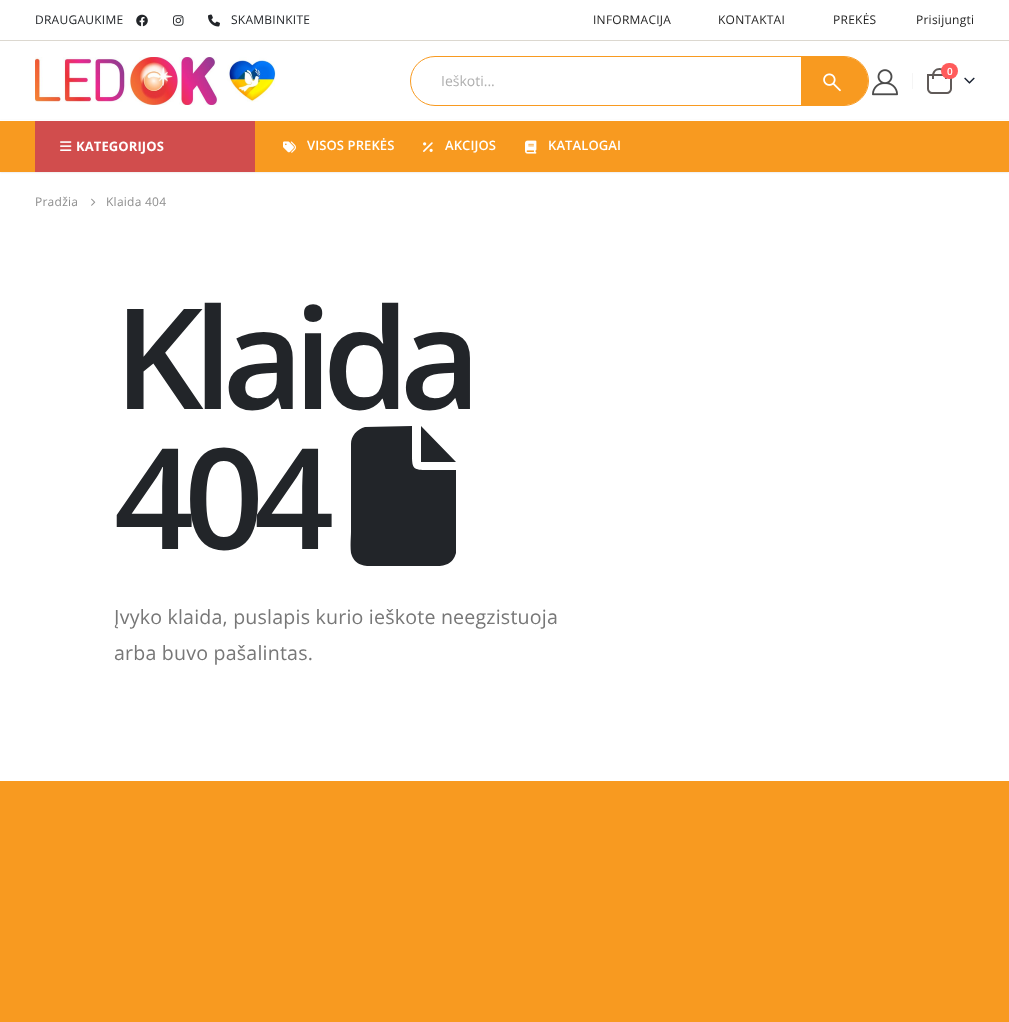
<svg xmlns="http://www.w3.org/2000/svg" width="1009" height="1022">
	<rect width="100%" height="100%" fill="#FFFFFF" />
	<rect x="0" y="40" width="1009" height="1" fill="#DCD8D0" />
	<text x="35" y="24" font-family="Open Sans" font-size="12" letter-spacing="0.25" fill="#222529">DRAUGAUKIME</text>
	<image x="136" y="14" width="12" height="13" href="assets/img1.png" />
	<image x="173" y="15" width="11" height="11" href="assets/img2.png" />
	<image x="208" y="14" width="12" height="13" href="assets/img3.png" />
	<text x="231" y="24" font-family="Open Sans" font-size="12" letter-spacing="0.25" fill="#222529">SKAMBINKITE</text>
	<g font-family="Open Sans" font-size="12" letter-spacing="0.25" fill="#1E1E1E">
		<text x="593" y="24">INFORMACIJA</text>
		<text x="718" y="24">KONTAKTAI</text>
		<text x="833" y="24">PREKĖS</text>
		<text x="916" y="24">Prisijungti</text>
	</g>
	<rect x="0" y="121" width="1009" height="51" fill="#000000" fill-opacity="0.15" filter="blur(1px)" />
	<rect x="0" y="120" width="1009" height="1" fill="#FFFFFF" />
	<image x="872" y="69" width="26" height="27" href="assets/img4.png" />
	<rect x="912" y="73" width="1" height="16" fill="#F5F5F5" />
	<path d="M928 75H951V89C951 91 949 93 947 93H932C930 93 928 91 928 89Z" fill="none" stroke="#605A58" stroke-width="2" />
	<path d="M939.5 68C943.5 68 947 71.5 947 75.5V79H932V75.5C932 71.5 935.5 68 939.5 68ZM939.5 70C945 70 945 75 945 79H934C934 75 934 70 939.5 70Z" fill="#605A58" fill-rule="evenodd" />
	<rect x="941" y="63" width="17" height="16" rx="8" fill="#FF5B5B" />
	<text x="947" y="75" font-family="Open Sans" font-size="10" font-weight="600" letter-spacing="0.2" fill="#FFFFFF">0</text>
	<image x="964" y="77" width="11" height="7" href="assets/img5.png" />
	<image x="35" y="57" width="241" height="48" href="assets/img6.png" />
	<rect x="410.5" y="56.5" width="458" height="49" rx="24.5" fill="none" stroke="#F89A20" />
	<text x="441" y="86" font-family="Open Sans" font-size="14" fill="#AFAFAF">Ieškoti...</text>
	<path d="M801 57H844C857.5 57 868 67.5 868 81C868 94.5 857.5 105 844 105H801Z" fill="#F89A20" />
	<image x="823" y="73" width="18" height="19" href="assets/img7.png" />
	<rect x="0" y="121" width="1009" height="51" fill="#F89A20" />
	<rect x="35" y="121" width="220" height="51" fill="#D14D4D" />
	<image x="60" y="141" width="12" height="10" href="assets/img8.png" />
	<text x="76" y="151" font-family="Open Sans" font-size="13" font-weight="700" letter-spacing="0.1" fill="#FFFFFF">KATEGORIJOS</text>
	<image x="283" y="141" width="13" height="12" href="assets/img9.png" />
	<text x="307" y="150" font-family="Open Sans" font-size="13" font-weight="600" letter-spacing="0.1" fill="#FFFFFF">VISOS PREKĖS</text>
	<image x="423" y="142" width="10" height="10" href="assets/img10.png" />
	<text x="445" y="150" font-family="Open Sans" font-size="13" font-weight="600" letter-spacing="0.1" fill="#FFFFFF">AKCIJOS</text>
	<image x="525" y="140" width="12" height="14" href="assets/img11.png" />
	<text x="548" y="150" font-family="Open Sans" font-size="13" font-weight="600" letter-spacing="0.1" fill="#FFFFFF">KATALOGAI</text>
	<text x="35" y="206" font-family="Open Sans" font-size="12" letter-spacing="0.25" fill="#8E8E8E">Pradžia</text>
	<image x="91" y="198" width="5" height="8" href="assets/img12.png" />
	<text x="106" y="206" font-family="Open Sans" font-size="12" letter-spacing="0.25" fill="#8E8E8E">Klaida 404</text>
	<g font-family="Open Sans" font-size="140" font-weight="600" letter-spacing="-10" fill="#222529">
		<text x="114" y="409">Klaida</text>
		<text x="114" y="549">404</text>
	</g>
	<path d="M351 444C351 436 357 429 365 427L412 426V456C412 469 414 470 427 470H456V553C452 568 439 566 427 566H380C368 566 355 568 351 553C350 546 351 536 351 532ZM456 462H421V426Z" fill="#222529" />
	<g font-family="Open Sans" font-size="19.6" letter-spacing="0.2" fill="#777777">
		<text x="114" y="624">Įvyko klaida, puslapis kurio ieškote neegzistuoja</text>
		<text x="114" y="660">arba buvo pašalintas.</text>
	</g>
	<rect x="0" y="781" width="1009" height="241" fill="#F89A20" />
</svg>
